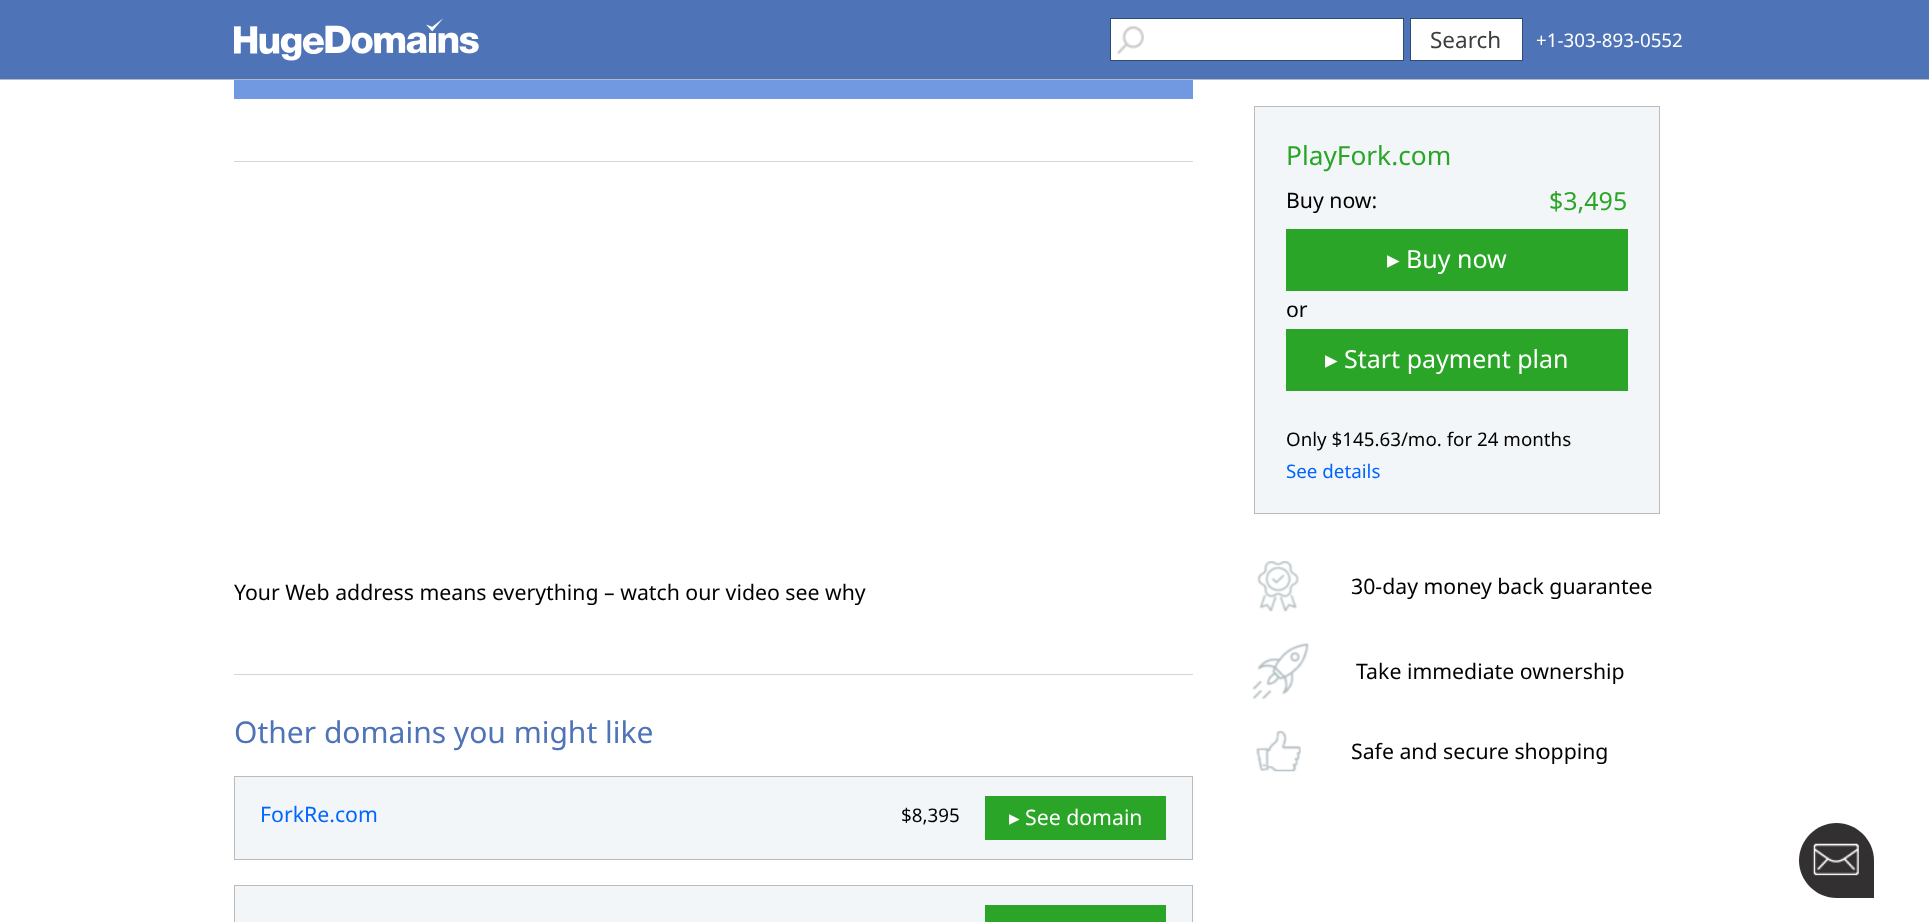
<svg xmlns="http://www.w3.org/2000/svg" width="1929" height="922">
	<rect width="100%" height="100%" fill="#FFFFFF" />
	<rect x="0" y="0" width="1929" height="79" fill="#4E73B7" />
	<rect x="0" y="79" width="1929" height="1" fill="#BBBBBB" />
	<image x="234" y="18" width="245" height="43" href="assets/img1.png" />
	<rect x="1111" y="19" width="292" height="41" fill="#FFFFFF" />
	<image x="1117" y="26" width="27" height="28" href="assets/img2.png" />
	<rect x="1110.5" y="18.5" width="293" height="42" fill="none" stroke="#2C4B79" />
	<rect x="1410.5" y="18.5" width="112" height="42" fill="#FFFFFF" stroke="#2C4B79" />
	<text x="1430" y="48" font-family="Noto Sans" font-size="22.5" fill="#3D3D3D">Search</text>
	<text x="1536" y="47" font-family="Noto Sans" font-size="18.75" fill="#FFFFFF">+1-303-893-0552</text>
	<rect x="234" y="161" width="959" height="1" fill="#D2D6DA" />
	<rect x="234" y="80" width="959" height="19" fill="#7199E2" />
	<rect x="234" y="674" width="959" height="1" fill="#D2D6DA" />
	<text x="234" y="600" font-family="Noto Sans" font-size="21.25" fill="#000000">Your Web address means everything – watch our video see why</text>
	<text x="234" y="743" font-family="Noto Sans" font-size="30" fill="#4E73B7">Other domains you might like</text>
	<rect x="234.5" y="776.5" width="958" height="83" fill="#F3F6F8" stroke="#BBBBBB" />
	<text x="260" y="822" font-family="Noto Sans" font-size="21.25" fill="#0166FE">ForkRe.com</text>
	<text x="901" y="822" font-family="Noto Sans" font-size="18.75" fill="#000000">$8,395</text>
	<rect x="985" y="796" width="181" height="44" fill="#2AA527" />
	<text x="1009" y="825" font-family="DejaVu Sans" font-size="21.25" fill="#FFFFFF">▸</text>
	<text x="1025" y="825" font-family="Noto Sans" font-size="21.25" fill="#FFFFFF">See domain</text>
	<rect x="234.5" y="885.5" width="958" height="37" fill="#F3F6F8" stroke="#BBBBBB" />
	<rect x="985" y="905" width="181" height="17" fill="#2AA527" />
	<rect x="1254.5" y="106.5" width="405" height="407" fill="#F3F6F8" stroke="#BBBBBB" />
	<text x="1286" y="165" font-family="Noto Sans" font-size="26.25" fill="#2AA527">PlayFork.com</text>
	<text x="1286" y="208" font-family="Noto Sans" font-size="21.25" fill="#000000">Buy now:</text>
	<text x="1549" y="210" font-family="Noto Sans" font-size="25" fill="#2AA527">$3,495</text>
	<rect x="1286" y="229" width="342" height="62" fill="#2AA527" />
	<text x="1387" y="268" font-family="DejaVu Sans" font-size="25" fill="#FFFFFF">▸</text>
	<text x="1406" y="268" font-family="Noto Sans" font-size="25" fill="#FFFFFF">Buy now</text>
	<text x="1286" y="317" font-family="Noto Sans" font-size="21.25" fill="#000000">or</text>
	<rect x="1286" y="329" width="342" height="62" fill="#2AA527" />
	<text x="1325" y="368" font-family="DejaVu Sans" font-size="25" fill="#FFFFFF">▸</text>
	<text x="1344" y="368" font-family="Noto Sans" font-size="25" fill="#FFFFFF">Start payment plan</text>
	<text x="1286" y="446" font-family="Noto Sans" font-size="18.75" fill="#000000">Only $145.63/mo. for 24 months</text>
	<text x="1286" y="478" font-family="Noto Sans" font-size="18.75" fill="#0166FE">See details</text>
	<image x="1257" y="561" width="42" height="51" href="assets/img3.png" />
	<text x="1351" y="594" font-family="Noto Sans" font-size="21.25" fill="#000000">30-day money back guarantee</text>
	<image x="1252" y="643" width="57" height="57" href="assets/img4.png" />
	<text x="1356" y="679" font-family="Noto Sans" font-size="21.25" fill="#000000">Take immediate ownership</text>
	<image x="1256" y="731" width="45" height="41" href="assets/img5.png" />
	<text x="1351" y="759" font-family="Noto Sans" font-size="21.25" fill="#000000">Safe and secure shopping</text>
	<path d="M1836.5 823C1857 823 1874 840 1874 860.5V898H1836.5C1816 898 1799 881 1799 860.5C1799 840 1816 823 1836.5 823Z" fill="#323031" />
	<image x="1812" y="843" width="47" height="33" href="assets/img6.png" />
</svg>
